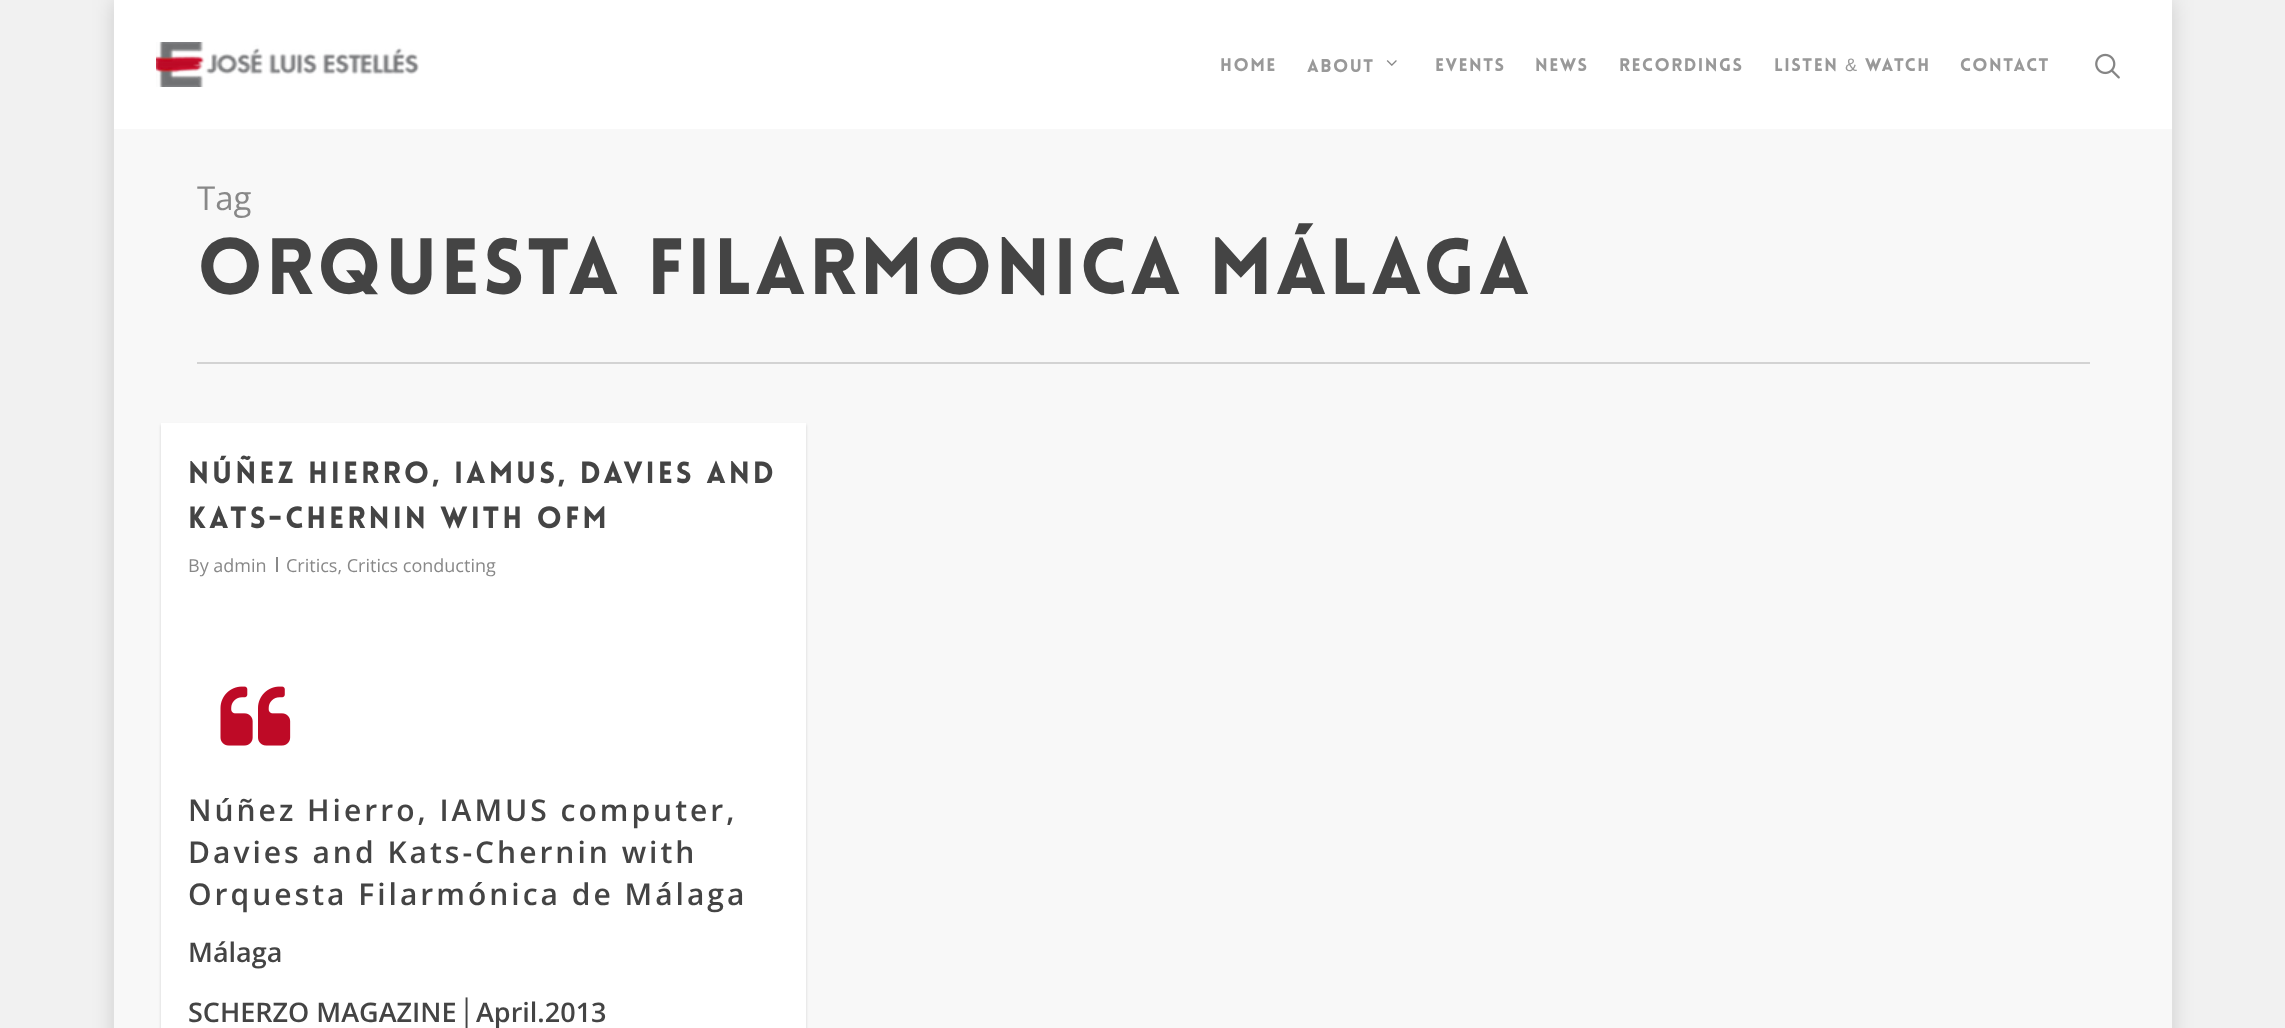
<svg xmlns="http://www.w3.org/2000/svg" width="2285" height="1028">
	<rect width="100%" height="100%" fill="#F1F1F1" />
	<rect x="114" y="0" width="2058" height="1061" fill="#000000" fill-opacity="0.15" filter="blur(11px)" />
	<rect x="114" y="0" width="2058" height="129" fill="#FFFFFF" />
	<image x="156" y="42" width="263" height="45" href="assets/img1.png" />
	<g font-family="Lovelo" font-size="18" font-weight="900" letter-spacing="1.5" fill="#999999">
		<text x="1220" y="71">Home</text>
		<text x="1307" y="72">About</text>
	</g>
	<image x="1386" y="60" width="11" height="6" href="assets/img2.png" />
	<g font-family="Lovelo" font-size="18" font-weight="900" letter-spacing="1.5" fill="#999999">
		<text x="1435" y="71">Events</text>
		<text x="1535" y="71">News</text>
		<text x="1619" y="71">Recordings</text>
		<text x="1774" y="71">Listen</text>
	</g>
	<text x="1845" y="71" font-family="Liberation Sans" font-size="18" letter-spacing="1.5" fill="#999999">&amp;</text>
	<g font-family="Lovelo" font-size="18" font-weight="900" letter-spacing="1.5" fill="#999999">
		<text x="1865" y="71">watch</text>
		<text x="1960" y="71">Contact</text>
	</g>
	<image x="2095" y="53" width="25" height="26" href="assets/img3.png" />
	<rect x="114" y="129" width="2058" height="899" fill="#F8F8F8" />
	<rect x="197" y="362" width="1893" height="2" fill="#D3D3D3" />
	<text x="197" y="210" font-family="Open Sans" font-size="33" fill="#888888">Tag</text>
	<text x="197" y="294" font-family="Lovelo" font-size="78" font-weight="900" letter-spacing="3" fill="#444444">orquesta filarmonica málaga</text>
	<rect x="161" y="425" width="645" height="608" fill="#000000" fill-opacity="0.15" filter="blur(1.5px)" />
	<rect x="161" y="423" width="645" height="605" fill="#FFFFFF" />
	<g font-family="Lovelo" font-size="30" font-weight="900" letter-spacing="3" fill="#444444">
		<text x="188" y="483">Núñez Hierro, IAMUS, Davies and</text>
		<text x="188" y="528">Kats-Chernin with OFM</text>
	</g>
	<text x="188" y="572" font-family="Open Sans" font-size="18" fill="#888888">By admin</text>
	<rect x="276" y="557" width="2" height="15" fill="#888888" />
	<text x="286" y="572" font-family="Open Sans" font-size="18" fill="#888888">Critics, Critics conducting</text>
	<image x="220" y="686" width="71" height="60" href="assets/img4.png" />
	<g font-family="Open Sans" font-size="30" font-weight="600" letter-spacing="3" fill="#444444">
		<text x="188" y="821">Núñez Hierro, IAMUS computer,</text>
		<text x="188" y="863">Davies and Kats-Chernin with</text>
		<text x="188" y="905">Orquesta Filarmónica de Málaga</text>
	</g>
	<g font-family="Open Sans" font-size="27" font-weight="600" fill="#444444">
		<text x="188" y="962">Málaga</text>
		<text x="188" y="1022">SCHERZO MAGAZINE</text>
	</g>
	<text x="457" y="1022" font-family="Liberation Serif" font-size="27" font-weight="700" fill="#444444">│</text>
	<text x="476" y="1022" font-family="Open Sans" font-size="27" font-weight="600" fill="#444444">April.2013</text>
</svg>
